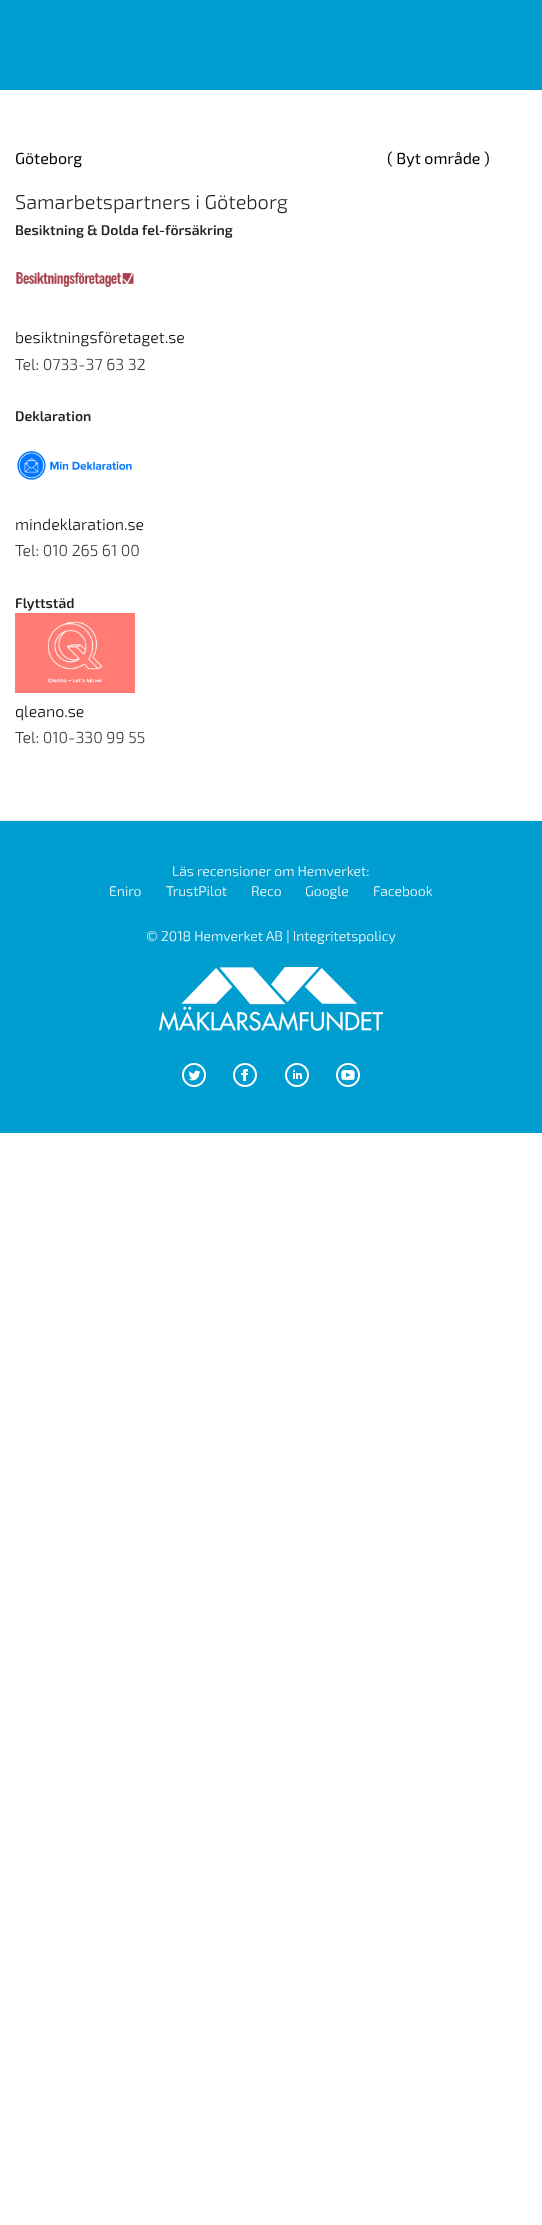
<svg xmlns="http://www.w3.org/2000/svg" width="542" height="2225">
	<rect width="100%" height="100%" fill="#FFFFFF" />
	<rect x="0" y="0" width="542" height="90" fill="#009ED0" />
	<g font-family="'Exo 2'" font-size="16" fill="#000000">
		<text x="15" y="164">Göteborg</text>
		<text x="387" y="164">( Byt område )</text>
	</g>
	<text x="15" y="209" font-family="'Exo 2'" font-size="20" font-weight="300" fill="#222328">Samarbetspartners i Göteborg</text>
	<text x="15" y="235" font-family="'Exo 2'" font-size="14" font-weight="600" fill="#222328">Besiktning &amp; Dolda fel-försäkring</text>
	<image x="16" y="272" width="118" height="15" href="assets/img1.png" />
	<text x="15" y="343" font-family="'Exo 2'" font-size="16" font-weight="300" fill="#000000">besiktningsföretaget.se</text>
	<text x="15" y="370" font-family="'Exo 2'" font-size="16" font-weight="300" fill="#363636">Tel: 0733-37 63 32</text>
	<text x="15" y="421" font-family="'Exo 2'" font-size="14" font-weight="600" fill="#222328">Deklaration</text>
	<image x="17" y="450" width="115" height="30" href="assets/img2.png" />
	<text x="15" y="530" font-family="'Exo 2'" font-size="16" font-weight="300" fill="#000000">mindeklaration.se</text>
	<text x="15" y="556" font-family="'Exo 2'" font-size="16" font-weight="300" fill="#363636">Tel: 010 265 61 00</text>
	<text x="15" y="608" font-family="'Exo 2'" font-size="14" font-weight="600" fill="#222328">Flyttstäd</text>
	<image x="15" y="613" width="120" height="80" href="assets/img3.png" />
	<text x="15" y="717" font-family="'Exo 2'" font-size="16" font-weight="300" fill="#000000">qleano.se</text>
	<text x="15" y="743" font-family="'Exo 2'" font-size="16" font-weight="300" fill="#363636">Tel: 010-330 99 55</text>
	<rect x="0" y="821" width="542" height="312" fill="#009ED0" />
	<rect x="0" y="820" width="542" height="1" fill="#EEEEEE" />
	<g font-family="'Exo 2'" font-size="14" font-weight="300" fill="#FFFFFF">
		<text x="172" y="876">Läs recensioner om Hemverket:</text>
		<text x="109" y="896">Eniro</text>
		<text x="166" y="896">TrustPilot</text>
		<text x="251" y="896">Reco</text>
		<text x="305" y="896">Google</text>
		<text x="373" y="896">Facebook</text>
		<text x="146" y="941">© 2018 Hemverket AB | Integritetspolicy</text>
	</g>
	<image x="159" y="967" width="224" height="64" href="assets/img4.png" />
	<image x="182" y="1063" width="24" height="24" href="assets/img5.png" />
	<image x="233" y="1063" width="24" height="24" href="assets/img6.png" />
	<image x="285" y="1063" width="24" height="24" href="assets/img7.png" />
	<image x="336" y="1063" width="24" height="24" href="assets/img8.png" />
</svg>
